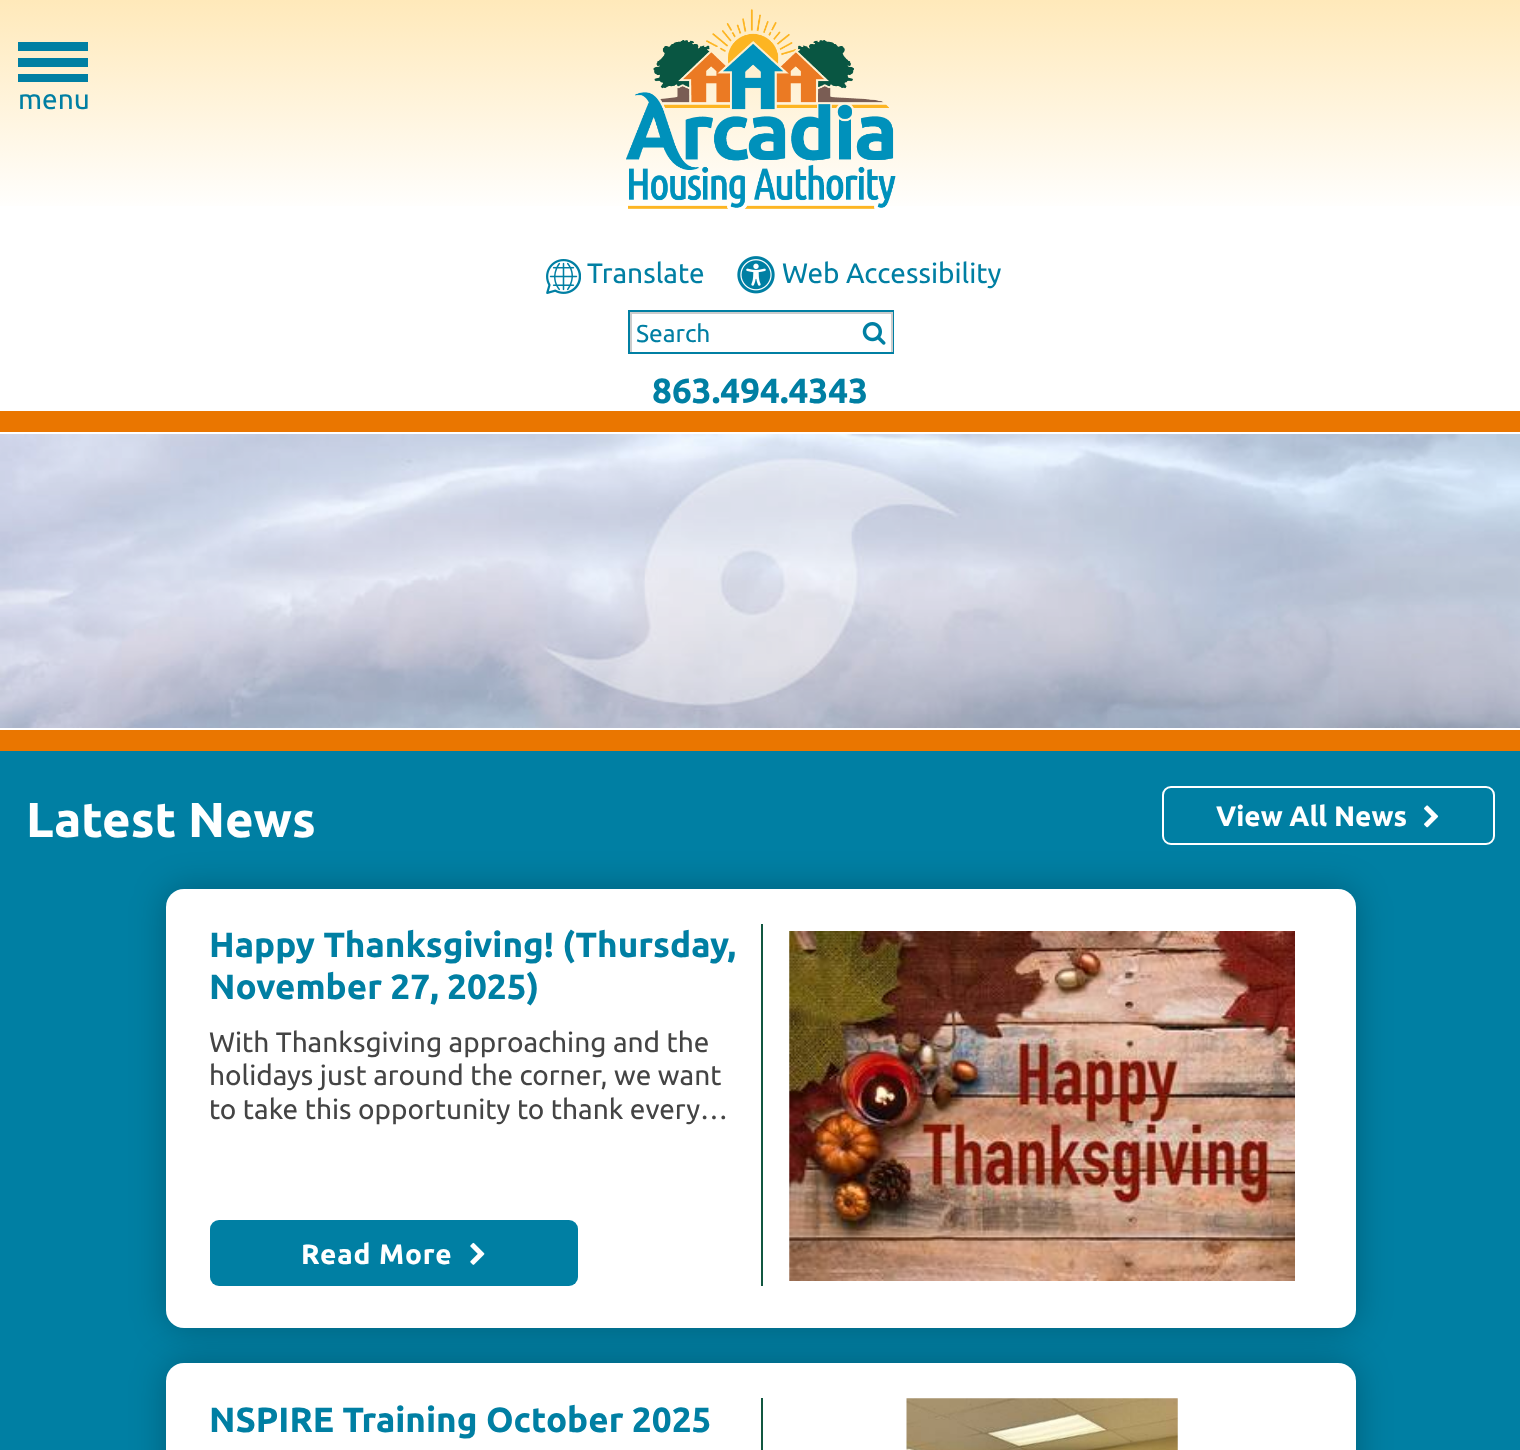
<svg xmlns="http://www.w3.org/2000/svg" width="1520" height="1450">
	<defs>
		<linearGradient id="g1" gradientUnits="userSpaceOnUse" x1="760" y1="0" x2="760" y2="411"><stop offset="0" stop-color="#FFE9BA" /><stop offset="0.52" stop-color="#FFFFFF" /><stop offset="1" stop-color="#FFFFFF" /></linearGradient>
		<clipPath id="clip1"><rect x="630" y="312" width="263" height="40" /></clipPath>
	</defs>
	<rect width="100%" height="100%" fill="#FFFFFF" />
	<rect x="0" y="0" width="1520" height="206" fill="url(#g1)" />
	<rect x="18" y="42" width="70" height="9" fill="#007FA3" />
	<rect x="18" y="58" width="70" height="9" fill="#007FA3" />
	<rect x="18" y="74" width="70" height="8" fill="#007FA3" />
	<text x="18" y="109" font-family="Ubuntu" font-size="28" fill="#007FA3">menu</text>
	<image x="626" y="9" width="270" height="200" href="assets/img1.png" />
	<image x="546" y="259" width="35" height="35" href="assets/img2.png" />
	<text x="587" y="283" font-family="Ubuntu" font-size="28" fill="#007FA3">Translate</text>
	<image x="737" y="256" width="38" height="38" href="assets/img3.png" />
	<text x="782" y="283" font-family="Ubuntu" font-size="28" fill="#007FA3">Web Accessibility</text>
	<rect x="629" y="311" width="264" height="42" fill="none" stroke="#007FA3" stroke-width="2" />
	<g clip-path="url(#clip1)">
		<rect x="631" y="313" width="261" height="40" fill="none" stroke="#CCCCCC" stroke-width="2" />
	</g>
	<text x="636" y="342" font-family="Ubuntu" font-size="24.5" fill="#007FA3">Search</text>
	<image x="862" y="322" width="24" height="23" href="assets/img4.png" />
	<text x="652" y="403" font-family="Ubuntu" font-size="35" font-weight="700" fill="#007FA3">863.494.4343</text>
	<rect x="0" y="411" width="1520" height="21" fill="#EA7600" />
	<image x="0" y="434" width="1520" height="294" href="assets/img5.png" />
	<rect x="0" y="730" width="1520" height="21" fill="#EA7600" />
	<rect x="0" y="751" width="1520" height="699" fill="#007FA3" />
	<text x="26" y="837" font-family="Ubuntu" font-size="49" font-weight="700" fill="#FFFFFF">Latest News</text>
	<rect x="1163" y="787" width="331" height="57" rx="8" fill="none" stroke="#FFFFFF" stroke-width="2" />
	<text x="1216" y="826" font-family="Ubuntu" font-size="28" font-weight="700" fill="#FFFFFF">View All News</text>
	<image x="1424" y="805" width="15" height="23" href="assets/img6.png" />
	<rect x="166" y="889" width="1190" height="439" rx="18" fill="#000000" fill-opacity="0.25" filter="blur(17.5px)" />
	<rect x="166" y="889" width="1190" height="439" rx="18" fill="#FFFFFF" />
	<g font-family="Ubuntu" font-size="35" font-weight="700" fill="#007FA3">
		<text x="209" y="957">Happy Thanksgiving! (Thursday,</text>
		<text x="209" y="999">November 27, 2025)</text>
	</g>
	<g font-family="Ubuntu" font-size="28" fill="#444444">
		<text x="209" y="1052">With Thanksgiving approaching and the</text>
		<text x="209" y="1085">holidays just around the corner, we want</text>
		<text x="209" y="1119">to take this opportunity to thank every…</text>
	</g>
	<rect x="210" y="1220" width="368" height="66" rx="9" fill="#007FA3" />
	<text x="301" y="1264" font-family="Ubuntu" font-size="28" font-weight="700" letter-spacing="0.9" fill="#FFFFFF">Read More</text>
	<image x="470" y="1242" width="15" height="23" href="assets/img7.png" />
	<rect x="761" y="924" width="2" height="362" fill="#115740" />
	<image x="789" y="931" width="506" height="350" href="assets/img8.png" />
	<rect x="166" y="1363" width="1190" height="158" rx="18" fill="#000000" fill-opacity="0.25" filter="blur(17.5px)" />
	<rect x="166" y="1363" width="1190" height="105" rx="18" fill="#FFFFFF" />
	<text x="209" y="1432" font-family="Ubuntu" font-size="35" font-weight="700" fill="#007FA3">NSPIRE Training October 2025</text>
	<rect x="761" y="1398" width="2" height="52" fill="#115740" />
	<image x="906" y="1398" width="272" height="52" href="assets/img9.png" />
</svg>
